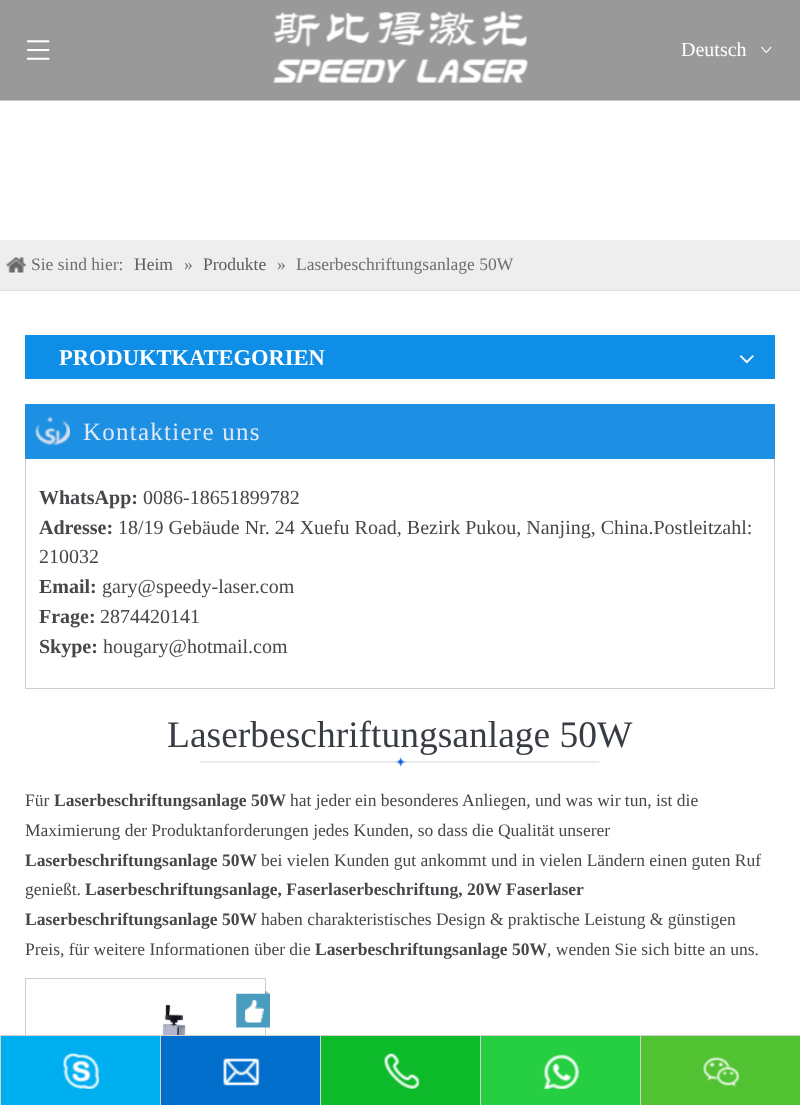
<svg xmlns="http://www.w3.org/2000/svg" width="800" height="1105">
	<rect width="100%" height="100%" fill="#FFFFFF" />
	<rect x="0" y="0" width="800" height="100" fill="#999999" />
	<rect x="0" y="100" width="800" height="1" fill="#C7C7C7" />
	<image x="273" y="11" width="255" height="72" href="assets/img1.png" />
	<image x="26" y="40" width="24" height="20" href="assets/img2.png" />
	<text x="681" y="56" font-family="Liberation Serif" font-size="20" fill="#FFFFFF">Deutsch</text>
	<image x="761" y="46" width="11" height="7" href="assets/img3.png" />
	<rect x="0" y="240" width="800" height="50" fill="#EEEEEE" />
	<rect x="0" y="290" width="800" height="1" fill="#DDDDDD" />
	<image x="6" y="257" width="21" height="16" href="assets/img4.png" />
	<text x="31" y="270" font-family="Liberation Serif" font-size="17.5" fill="#6C6F74">Sie sind hier:</text>
	<text x="134" y="270" font-family="Liberation Serif" font-size="17.5" fill="#5A5D61">Heim</text>
	<text x="184" y="270" font-family="Liberation Serif" font-size="17.5" fill="#6C6F74">»</text>
	<text x="203" y="270" font-family="Liberation Serif" font-size="17.5" fill="#5A5D61">Produkte</text>
	<g font-family="Liberation Serif" font-size="17.5" fill="#6C6F74">
		<text x="277" y="270">»</text>
		<text x="296" y="270">Laserbeschriftungsanlage 50W</text>
	</g>
	<rect x="25" y="335" width="750" height="44" fill="#0E8EE6" />
	<text x="59" y="365" font-family="Liberation Serif" font-size="22.5" font-weight="700" fill="#FFFFFF">PRODUKTKATEGORIEN</text>
	<image x="739" y="355" width="15" height="9" href="assets/img5.png" />
	<rect x="25" y="404" width="750" height="55" fill="#1E90E3" />
	<image x="35" y="416" width="35" height="30" href="assets/img6.png" />
	<text x="83" y="440" font-family="Liberation Serif" font-size="25" letter-spacing="1.25" fill="#DEE8F8">Kontaktiere uns</text>
	<rect x="774" y="459" width="1" height="230" fill="#CBCFD4" />
	<rect x="25" y="688" width="750" height="1" fill="#CBCFD4" />
	<rect x="25" y="459" width="1" height="230" fill="#CBCFD4" />
	<text x="39" y="504" font-family="Liberation Serif" font-size="20" font-weight="700" fill="#46474A">WhatsApp:</text>
	<text x="143" y="504" font-family="Liberation Serif" font-size="20" fill="#46474A">0086-18651899782</text>
	<text x="39" y="534" font-family="Liberation Serif" font-size="20" font-weight="700" fill="#46474A">Adresse:</text>
	<g font-family="Liberation Serif" font-size="20" fill="#46474A">
		<text x="118" y="534">18/19 Gebäude Nr. 24 Xuefu Road, Bezirk Pukou, Nanjing, China.Postleitzahl:</text>
		<text x="39" y="563">210032</text>
	</g>
	<text x="39" y="593" font-family="Liberation Serif" font-size="20" font-weight="700" fill="#46474A">Email:</text>
	<text x="102" y="593" font-family="Liberation Serif" font-size="20" fill="#46474A">gary@speedy-laser.com</text>
	<text x="39" y="623" font-family="Liberation Serif" font-size="20" font-weight="700" fill="#46474A">Frage:</text>
	<text x="100" y="623" font-family="Liberation Serif" font-size="20" fill="#46474A">2874420141</text>
	<text x="39" y="653" font-family="Liberation Serif" font-size="20" font-weight="700" fill="#46474A">Skype:</text>
	<text x="103" y="653" font-family="Liberation Serif" font-size="20" fill="#46474A">hougary@hotmail.com</text>
	<image x="198" y="756" width="452" height="12" href="assets/img7.png" />
	<text x="167" y="747" font-family="Liberation Serif" font-size="37.5" fill="#383C43">Laserbeschriftungsanlage 50W</text>
	<text x="25" y="806" font-family="Liberation Serif" font-size="17.5" fill="#46474A">Für</text>
	<text x="54" y="806" font-family="Liberation Serif" font-size="17.5" font-weight="700" fill="#46474A">Laserbeschriftungsanlage 50W</text>
	<g font-family="Liberation Serif" font-size="17.5" fill="#46474A">
		<text x="290" y="806">hat jeder ein besonderes Anliegen, und was wir tun, ist die</text>
		<text x="25" y="836">Maximierung der Produktanforderungen jedes Kunden, so dass die Qualität unserer</text>
	</g>
	<text x="25" y="866" font-family="Liberation Serif" font-size="17.5" font-weight="700" fill="#46474A">Laserbeschriftungsanlage 50W</text>
	<g font-family="Liberation Serif" font-size="17.5" fill="#46474A">
		<text x="261" y="866">bei vielen Kunden gut ankommt und in vielen Ländern einen guten Ruf</text>
		<text x="25" y="895">genießt.</text>
	</g>
	<g font-family="Liberation Serif" font-size="17.5" font-weight="700" fill="#46474A">
		<text x="85" y="895">Laserbeschriftungsanlage, Faserlaserbeschriftung, 20W Faserlaser</text>
		<text x="25" y="925">Laserbeschriftungsanlage 50W</text>
	</g>
	<g font-family="Liberation Serif" font-size="17.5" fill="#46474A">
		<text x="261" y="925">haben charakteristisches Design &amp; praktische Leistung &amp; günstigen</text>
		<text x="25" y="955">Preis, für weitere Informationen über die</text>
	</g>
	<text x="315" y="955" font-family="Liberation Serif" font-size="17.5" font-weight="700" fill="#46474A">Laserbeschriftungsanlage 50W</text>
	<text x="547" y="955" font-family="Liberation Serif" font-size="17.5" fill="#46474A">, wenden Sie sich bitte an uns.</text>
	<rect x="25.5" y="978.5" width="240" height="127" fill="none" stroke="#CCCCCC" />
	<image x="52" y="1004" width="173" height="31" href="assets/img8.png" />
	<image x="236" y="991" width="34" height="37" href="assets/img9.png" />
	<rect x="0" y="1035" width="800" height="1" fill="#D3D3D3" />
	<rect x="0" y="1036" width="1" height="69" fill="#D3D3D3" />
	<rect x="1" y="1036" width="159" height="69" fill="#00AFF0" />
	<image x="63" y="1053" width="37" height="36" href="assets/img10.png" />
	<rect x="160" y="1036" width="1" height="69" fill="#D3D3D3" />
	<rect x="161" y="1036" width="159" height="69" fill="#016ECB" />
	<image x="223" y="1058" width="37" height="28" href="assets/img11.png" />
	<rect x="320" y="1036" width="1" height="69" fill="#D3D3D3" />
	<rect x="321" y="1036" width="159" height="69" fill="#0DBA2A" />
	<image x="383" y="1053" width="37" height="36" href="assets/img12.png" />
	<rect x="480" y="1036" width="1" height="69" fill="#D3D3D3" />
	<rect x="481" y="1036" width="159" height="69" fill="#26CF41" />
	<image x="543" y="1054" width="37" height="35" href="assets/img13.png" />
	<rect x="640" y="1036" width="1" height="69" fill="#D3D3D3" />
	<rect x="641" y="1036" width="159" height="69" fill="#51C332" />
	<image x="703" y="1056" width="37" height="31" href="assets/img14.png" />
</svg>
